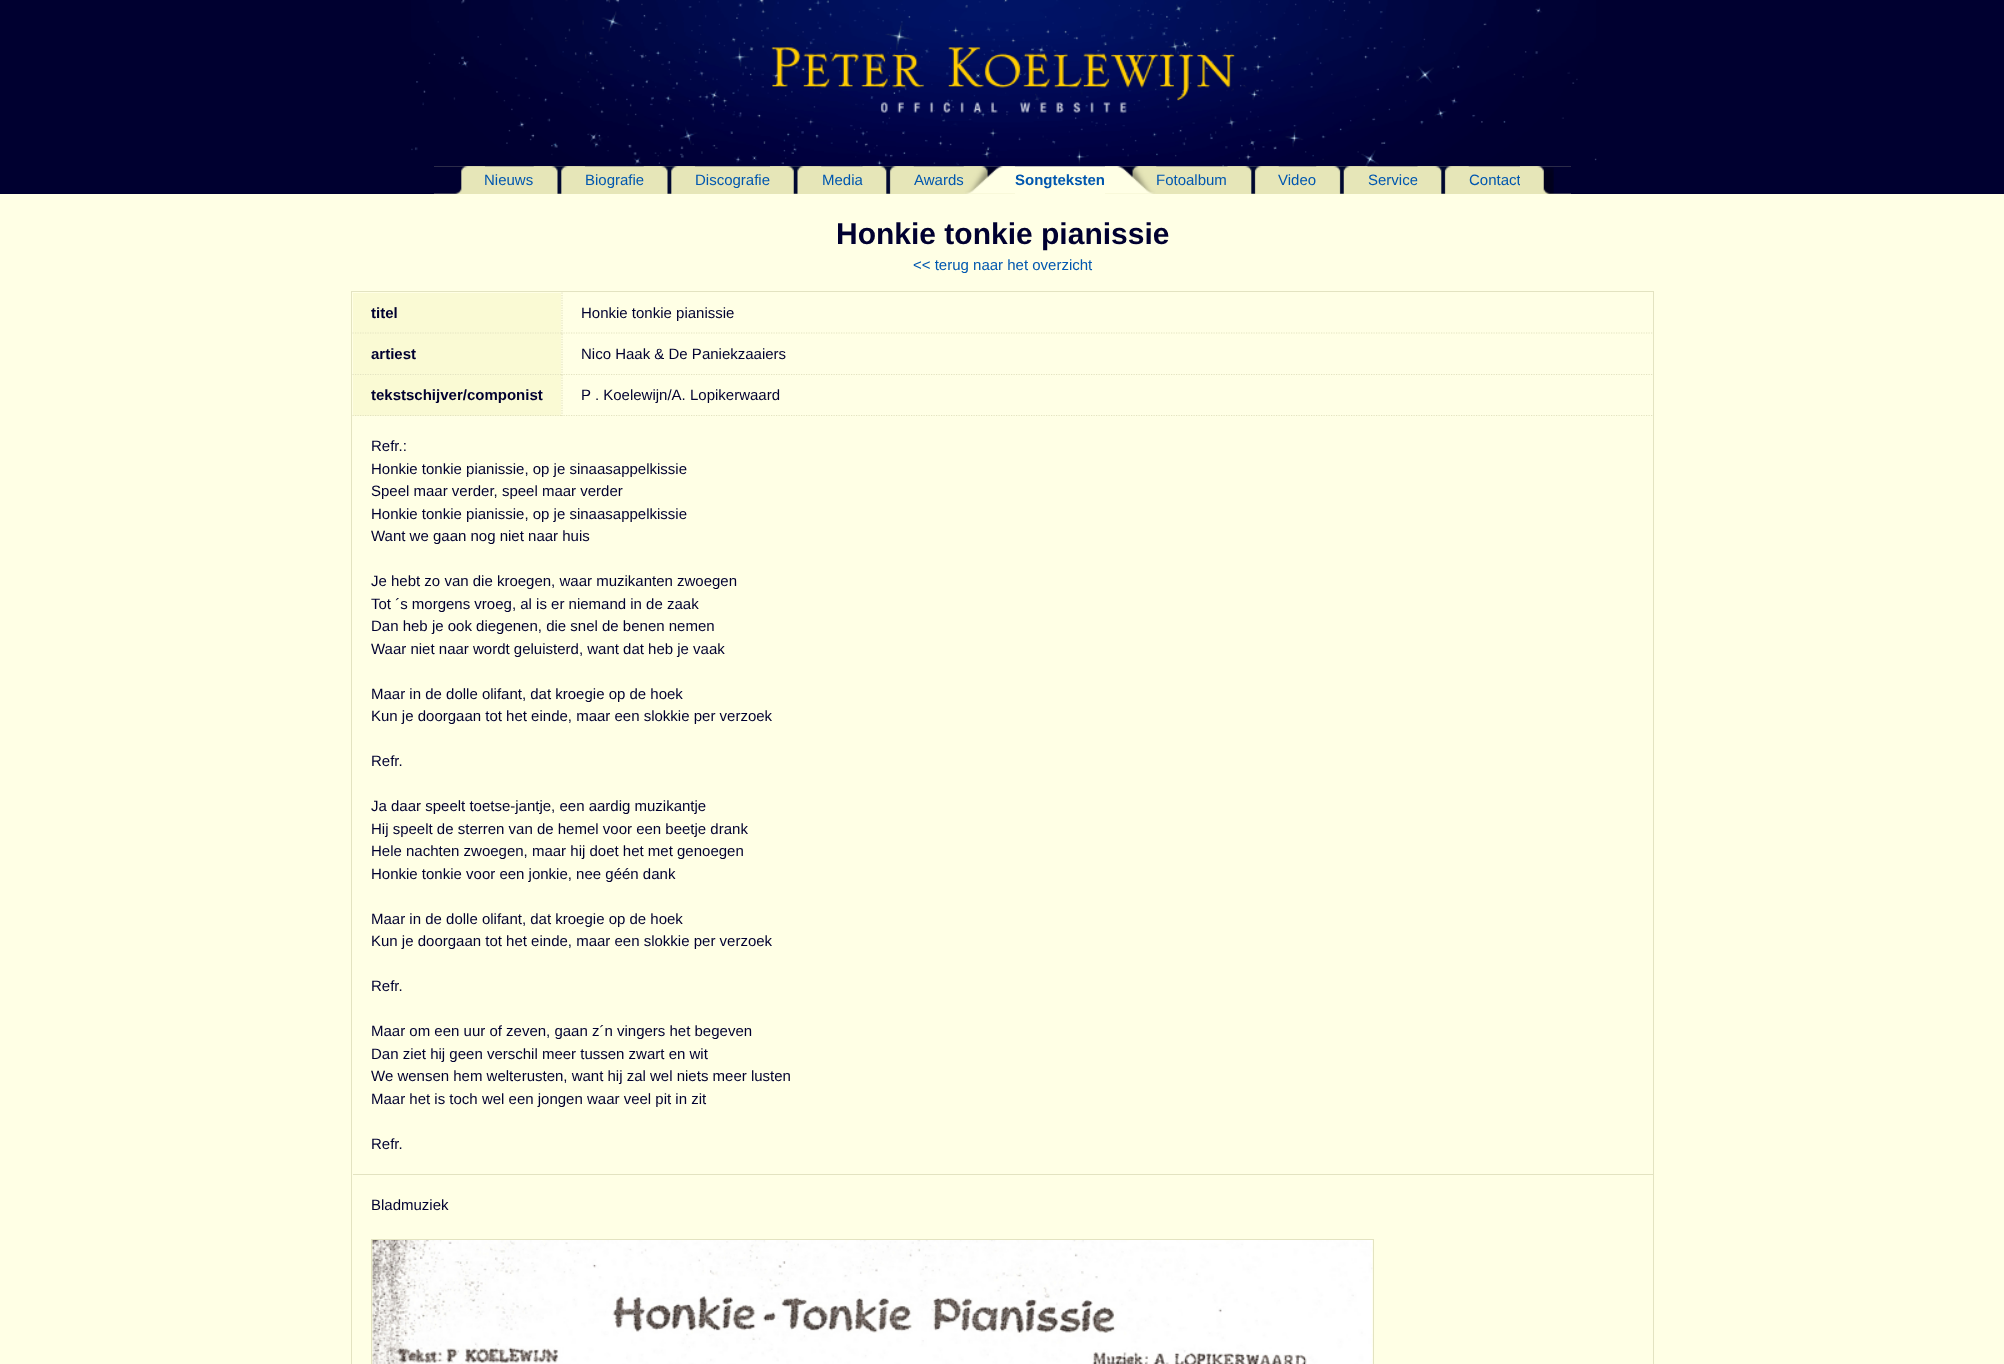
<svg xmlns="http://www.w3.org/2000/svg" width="2004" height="1364">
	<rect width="100%" height="100%" fill="#000030" />
	<rect x="434" y="166" width="1137" height="28" fill="#E6E6B8" />
	<rect x="1015" y="166" width="90" height="28" fill="#FFFFE5" />
	<image x="411" y="0" width="1186" height="167" href="assets/img1.png" />
	<image x="434" y="166" width="51" height="28" href="assets/img2.png" />
	<text x="484" y="185" font-family="Liberation Sans" font-size="15" fill="#0057AF">Nieuws</text>
	<image x="533" y="166" width="52" height="28" href="assets/img3.png" />
	<text x="585" y="185" font-family="Liberation Sans" font-size="15" fill="#0057AF">Biografie</text>
	<image x="643" y="166" width="52" height="28" href="assets/img4.png" />
	<text x="695" y="185" font-family="Liberation Sans" font-size="15" fill="#0057AF">Discografie</text>
	<image x="770" y="166" width="52" height="28" href="assets/img5.png" />
	<text x="822" y="185" font-family="Liberation Sans" font-size="15" fill="#0057AF">Media</text>
	<image x="862" y="166" width="52" height="28" href="assets/img6.png" />
	<text x="914" y="185" font-family="Liberation Sans" font-size="15" fill="#0057AF">Awards</text>
	<image x="963" y="166" width="52" height="28" href="assets/img7.png" />
	<text x="1015" y="185" font-family="Liberation Sans" font-size="15" font-weight="700" fill="#0057AF">Songteksten</text>
	<image x="1105" y="166" width="52" height="28" href="assets/img8.png" />
	<text x="1156" y="185" font-family="Liberation Sans" font-size="15" fill="#0057AF">Fotoalbum</text>
	<image x="1227" y="166" width="52" height="28" href="assets/img9.png" />
	<text x="1278" y="185" font-family="Liberation Sans" font-size="15" fill="#0057AF">Video</text>
	<image x="1316" y="166" width="52" height="28" href="assets/img10.png" />
	<text x="1368" y="185" font-family="Liberation Sans" font-size="15" fill="#0057AF">Service</text>
	<image x="1417" y="166" width="52" height="28" href="assets/img11.png" />
	<text x="1469" y="185" font-family="Liberation Sans" font-size="15" fill="#0057AF">Contact</text>
	<image x="1520" y="166" width="51" height="28" href="assets/img12.png" />
	<rect x="0" y="194" width="2004" height="1170" fill="#FFFFE5" />
	<text x="836" y="244" font-family="Liberation Sans" font-size="30" font-weight="700" fill="#000030">Honkie tonkie pianissie</text>
	<text x="913" y="270" font-family="Liberation Sans" font-size="15" fill="#0057AF">&lt;&lt; terug naar het overzicht</text>
	<rect x="351" y="291" width="1303" height="1" fill="#E3E3C1" />
	<rect x="1653" y="291" width="1" height="1073" fill="#E3E3C1" />
	<rect x="351" y="291" width="1" height="1073" fill="#E3E3C1" />
	<rect x="353" y="293" width="208" height="82" fill="#FAFAD4" />
	<path d="M352.5 333H561" fill="none" stroke="#E3E3C1" stroke-width="1.2" stroke-dasharray="1.25 1.25" />
	<text x="371" y="318" font-family="Liberation Sans" font-size="15" font-weight="700" fill="#000030">titel</text>
	<path d="M561 333H1652.5" fill="none" stroke="#E3E3C1" stroke-width="1.2" stroke-dasharray="1.25 1.25" />
	<path d="M562 292.5V334" fill="none" stroke="#E3E3C1" stroke-width="1.2" stroke-dasharray="1.25 1.25" />
	<text x="581" y="318" font-family="Liberation Sans" font-size="15" fill="#000030">Honkie tonkie pianissie</text>
	<path d="M352.5 374.5H561" fill="none" stroke="#E3E3C1" stroke-width="1.2" stroke-dasharray="1.25 1.25" />
	<text x="371" y="359" font-family="Liberation Sans" font-size="15" font-weight="700" fill="#000030">artiest</text>
	<path d="M561 374.5H1652.5" fill="none" stroke="#E3E3C1" stroke-width="1.2" stroke-dasharray="1.25 1.25" />
	<path d="M562 334V375" fill="none" stroke="#E3E3C1" stroke-width="1.2" stroke-dasharray="1.25 1.25" />
	<text x="581" y="359" font-family="Liberation Sans" font-size="15" fill="#000030">Nico Haak &amp; De Paniekzaaiers</text>
	<rect x="353" y="375" width="208" height="41" fill="#FAFAD4" />
	<path d="M352.5 415.5H561" fill="none" stroke="#E3E3C1" stroke-width="1.2" stroke-dasharray="1.25 1.25" />
	<text x="371" y="400" font-family="Liberation Sans" font-size="15" font-weight="700" fill="#000030">tekstschijver/componist</text>
	<path d="M561 415.5H1652.5" fill="none" stroke="#E3E3C1" stroke-width="1.2" stroke-dasharray="1.25 1.25" />
	<path d="M562 375V416" fill="none" stroke="#E3E3C1" stroke-width="1.2" stroke-dasharray="1.25 1.25" />
	<text x="581" y="400" font-family="Liberation Sans" font-size="15" fill="#000030">P . Koelewijn/A. Lopikerwaard</text>
	<rect x="353" y="416" width="1299" height="1" fill="#FFFFE5" />
	<rect x="353" y="1174" width="1300" height="1" fill="#E3E3C1" />
	<g font-family="Liberation Sans" font-size="15" fill="#000030">
		<text x="371" y="451">Refr.:</text>
		<text x="371" y="474">Honkie tonkie pianissie, op je sinaasappelkissie</text>
		<text x="371" y="496">Speel maar verder, speel maar verder</text>
		<text x="371" y="519">Honkie tonkie pianissie, op je sinaasappelkissie</text>
		<text x="371" y="541">Want we gaan nog niet naar huis</text>
		<text x="371" y="586">Je hebt zo van die kroegen, waar muzikanten zwoegen</text>
		<text x="371" y="609">Tot ´s morgens vroeg, al is er niemand in de zaak</text>
		<text x="371" y="631">Dan heb je ook diegenen, die snel de benen nemen</text>
		<text x="371" y="654">Waar niet naar wordt geluisterd, want dat heb je vaak</text>
		<text x="371" y="699">Maar in de dolle olifant, dat kroegie op de hoek</text>
		<text x="371" y="721">Kun je doorgaan tot het einde, maar een slokkie per verzoek</text>
		<text x="371" y="766">Refr.</text>
		<text x="371" y="811">Ja daar speelt toetse-jantje, een aardig muzikantje</text>
		<text x="371" y="834">Hij speelt de sterren van de hemel voor een beetje drank</text>
		<text x="371" y="856">Hele nachten zwoegen, maar hij doet het met genoegen</text>
		<text x="371" y="879">Honkie tonkie voor een jonkie, nee géén dank</text>
		<text x="371" y="924">Maar in de dolle olifant, dat kroegie op de hoek</text>
		<text x="371" y="946">Kun je doorgaan tot het einde, maar een slokkie per verzoek</text>
		<text x="371" y="991">Refr.</text>
		<text x="371" y="1036">Maar om een uur of zeven, gaan z´n vingers het begeven</text>
		<text x="371" y="1059">Dan ziet hij geen verschil meer tussen zwart en wit</text>
		<text x="371" y="1081">We wensen hem welterusten, want hij zal wel niets meer lusten</text>
		<text x="371" y="1104">Maar het is toch wel een jongen waar veel pit in zit</text>
		<text x="371" y="1149">Refr.</text>
		<text x="371" y="1210">Bladmuziek</text>
	</g>
	<rect x="371.5" y="1239.5" width="1002" height="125" fill="none" stroke="#E3E3C1" />
	<image x="372" y="1240" width="1001" height="124" href="assets/img13.png" />
</svg>
